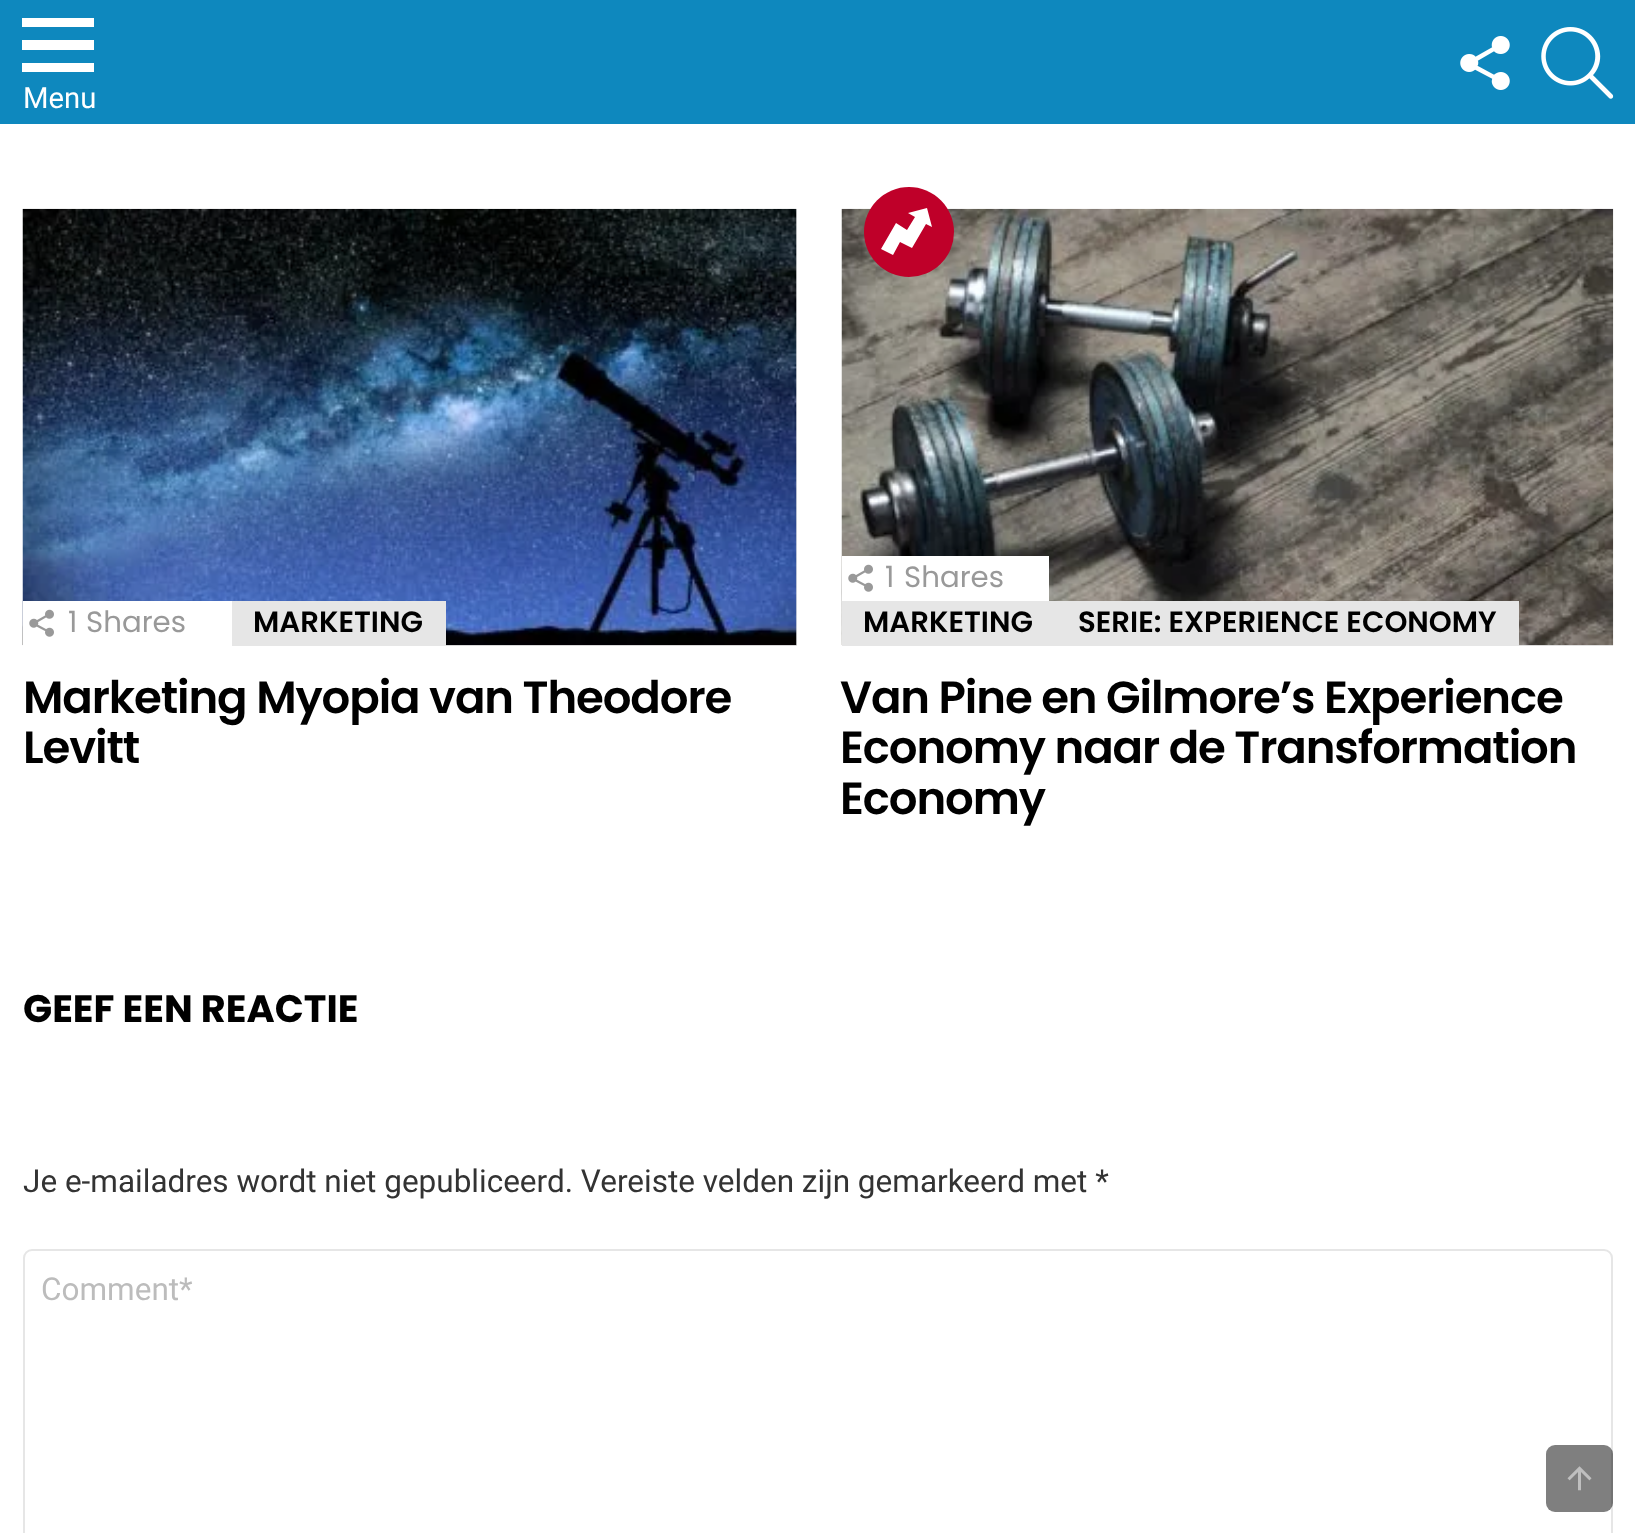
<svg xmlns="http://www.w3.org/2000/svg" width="1635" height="1533">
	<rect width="100%" height="100%" fill="#FFFFFF" />
	<rect x="0" y="0" width="1635" height="124" fill="#0E88BE" />
	<path d="M22 18H94V27H22ZM22 40H94V50H22ZM22 63H94V72H22Z" fill="#FFFFFF" />
	<text x="23" y="108" font-family="Roboto" font-size="29.25" fill="#FFFFFF">Menu</text>
	<image x="1460" y="36" width="50" height="54" href="assets/img1.png" />
	<image x="1541" y="27" width="73" height="72" href="assets/img2.png" />
	<rect x="446" y="209" width="351" height="437" fill="#E6E6E6" />
	<image x="22" y="208" width="775" height="438" href="assets/img3.png" />
	<rect x="23" y="601" width="209" height="45" fill="#FFFFFF" />
	<image x="29" y="609" width="25" height="28" href="assets/img4.png" />
	<g font-family="Poppins" font-size="29.25" fill="#999999">
		<text x="68" y="632">1</text>
		<text x="86" y="632">Shares</text>
	</g>
	<rect x="232" y="601" width="214" height="45" fill="#E6E6E6" />
	<text x="253" y="632" font-family="Poppins" font-size="29.25" font-weight="600" fill="#000000">MARKETING</text>
	<g font-family="Poppins" font-size="45" font-weight="600" letter-spacing="-1.1" fill="#000000">
		<text x="23" y="713">Marketing Myopia van Theodore</text>
		<text x="23" y="763">Levitt</text>
	</g>
	<rect x="1519" y="645" width="94" height="1" fill="#E6E6E6" />
	<image x="841" y="208" width="773" height="438" href="assets/img5.png" />
	<circle cx="909" cy="232" r="45" fill="#BF0029" />
	<path d="M907 230L915 217L908 213L927 208L932 227L926 224L912 248L900 242L893 255L881 249L896 223Z" fill="#FFFFFF" />
	<rect x="842" y="556" width="207" height="45" fill="#FFFFFF" />
	<image x="848" y="564" width="25" height="28" href="assets/img4.png" />
	<g font-family="Poppins" font-size="29.25" fill="#999999">
		<text x="885" y="587">1</text>
		<text x="904" y="587">Shares</text>
	</g>
	<rect x="842" y="601" width="677" height="45" fill="#E6E6E6" />
	<g font-family="Poppins" font-size="29.25" font-weight="600" fill="#000000">
		<text x="863" y="632">MARKETING</text>
		<text x="1078" y="632">SERIE: EXPERIENCE ECONOMY</text>
	</g>
	<g font-family="Poppins" font-size="45" font-weight="600" letter-spacing="-1.1" fill="#000000">
		<text x="840" y="713">Van Pine en Gilmore’s Experience</text>
		<text x="840" y="763">Economy naar de Transformation</text>
		<text x="840" y="814">Economy</text>
	</g>
	<text x="23" y="1022" font-family="Poppins" font-size="38.25" font-weight="700" fill="#000000">GEEF EEN REACTIE</text>
	<text x="23" y="1192" font-family="Roboto" font-size="31.5" fill="#333333">Je e-mailadres wordt niet gepubliceerd. Vereiste velden zijn gemarkeerd met *</text>
	<rect x="24" y="1250" width="1588" height="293" rx="8" fill="none" stroke="#E6E6E6" stroke-width="2" />
	<text x="41" y="1300" font-family="Roboto" font-size="31.5" fill="#BCBCBC">Comment*</text>
	<rect x="1546" y="1445" width="67" height="67" rx="9" fill="#000000" fill-opacity="0.5" />
	<image x="1567" y="1466" width="25" height="25" href="assets/img6.png" />
</svg>
